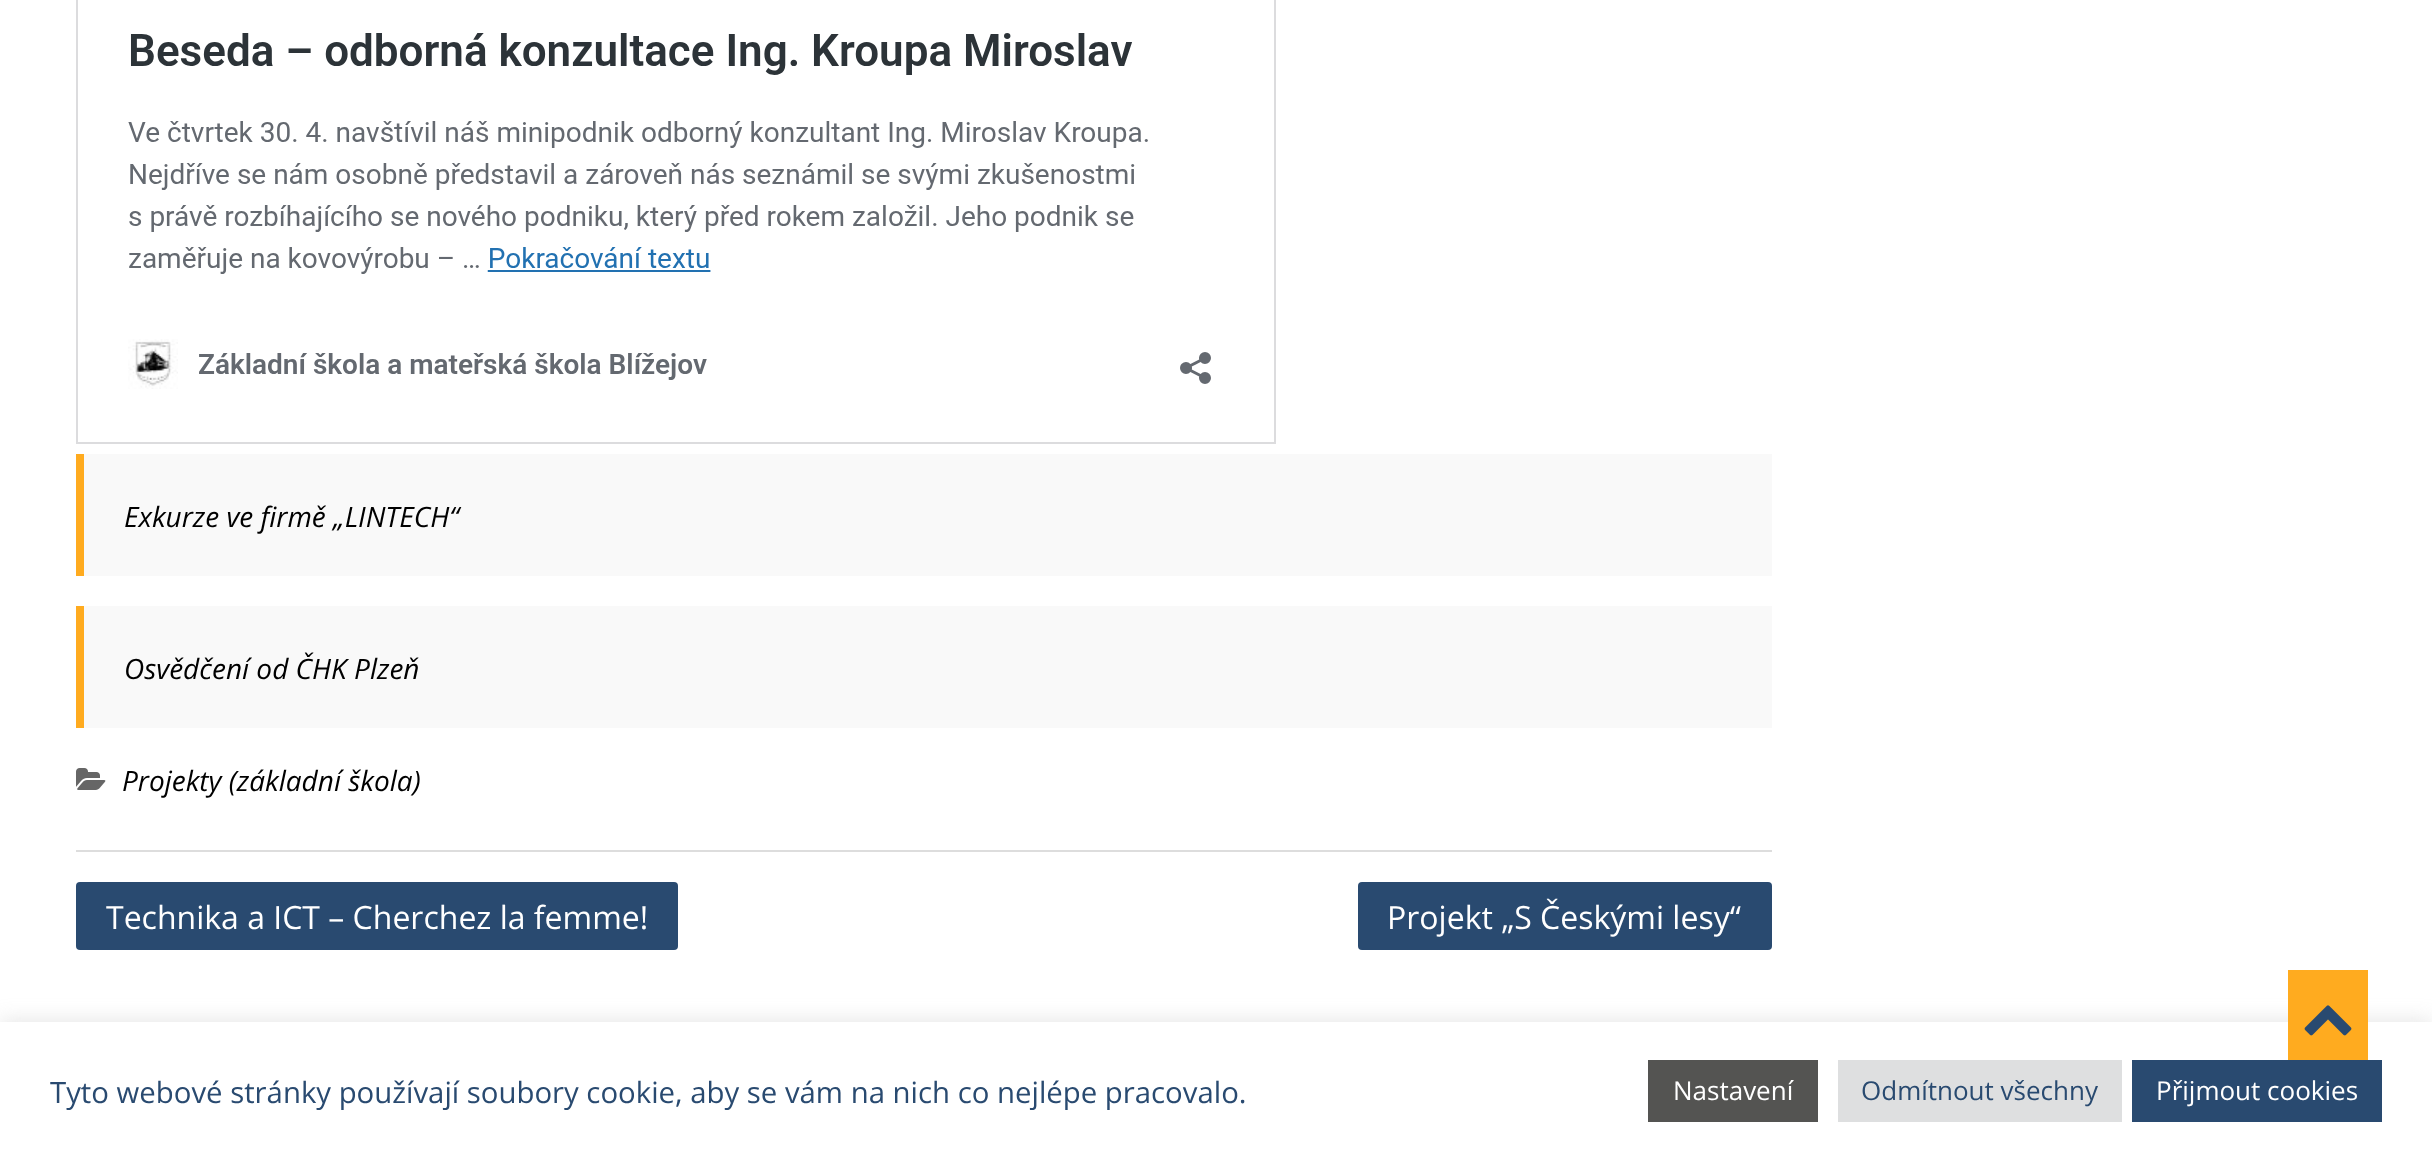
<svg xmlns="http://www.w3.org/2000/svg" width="2432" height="1160">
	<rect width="100%" height="100%" fill="#FFFFFF" />
	<rect x="76" y="850" width="1696" height="2" fill="#DDDDDD" />
	<image x="76" y="0" width="1200" height="444" href="assets/img1.png" />
	<rect x="84" y="454" width="1688" height="122" fill="#F9F9F9" />
	<rect x="76" y="454" width="8" height="122" fill="#FFAB1F" />
	<text x="124" y="527" font-family="Open Sans" font-size="28" font-style="italic" fill="#000000">Exkurze ve firmě „LINTECH“</text>
	<rect x="84" y="606" width="1688" height="122" fill="#F9F9F9" />
	<rect x="76" y="606" width="8" height="122" fill="#FFAB1F" />
	<text x="124" y="679" font-family="Open Sans" font-size="28" font-style="italic" fill="#000000">Osvědčení od ČHK Plzeň</text>
	<image x="76" y="768" width="30" height="22" href="assets/img2.png" />
	<text x="122" y="791" font-family="Open Sans" font-size="28" font-style="italic" fill="#000000">Projekty (základní škola)</text>
	<rect x="76" y="882" width="602" height="68" rx="4" fill="#294A70" />
	<text x="106" y="929" font-family="Open Sans" font-size="32" fill="#FFFFFF">Technika a ICT – Cherchez la femme!</text>
	<rect x="1358" y="882" width="414" height="68" rx="4" fill="#294A70" />
	<text x="1387" y="929" font-family="Open Sans" font-size="32" fill="#FFFFFF">Projekt „S Českými lesy“</text>
	<rect x="0" y="1020" width="2432" height="138" fill="#ACABAB" fill-opacity="0.3" filter="blur(10px)" />
	<rect x="0" y="1022" width="2432" height="138" fill="#FFFFFF" />
	<rect x="2288" y="970" width="80" height="90" fill="#FFAB1F" />
	<image x="2304" y="1005" width="48" height="31" href="assets/img3.png" />
	<text x="50" y="1103" font-family="Open Sans" font-size="29.35" fill="#294A70">Tyto webové stránky používají soubory cookie, aby se vám na nich co nejlépe pracovalo.</text>
	<rect x="1648" y="1060" width="170" height="62" fill="#545452" />
	<text x="1673" y="1100" font-family="Open Sans" font-size="26" fill="#FFFFFF">Nastavení</text>
	<rect x="1838" y="1060" width="284" height="62" fill="#DEDFE0" />
	<text x="1861" y="1100" font-family="Open Sans" font-size="26" fill="#294A70">Odmítnout všechny</text>
	<rect x="2132" y="1060" width="250" height="62" fill="#294A70" />
	<text x="2156" y="1100" font-family="Open Sans" font-size="26" fill="#FFFFFF">Přijmout cookies</text>
</svg>
